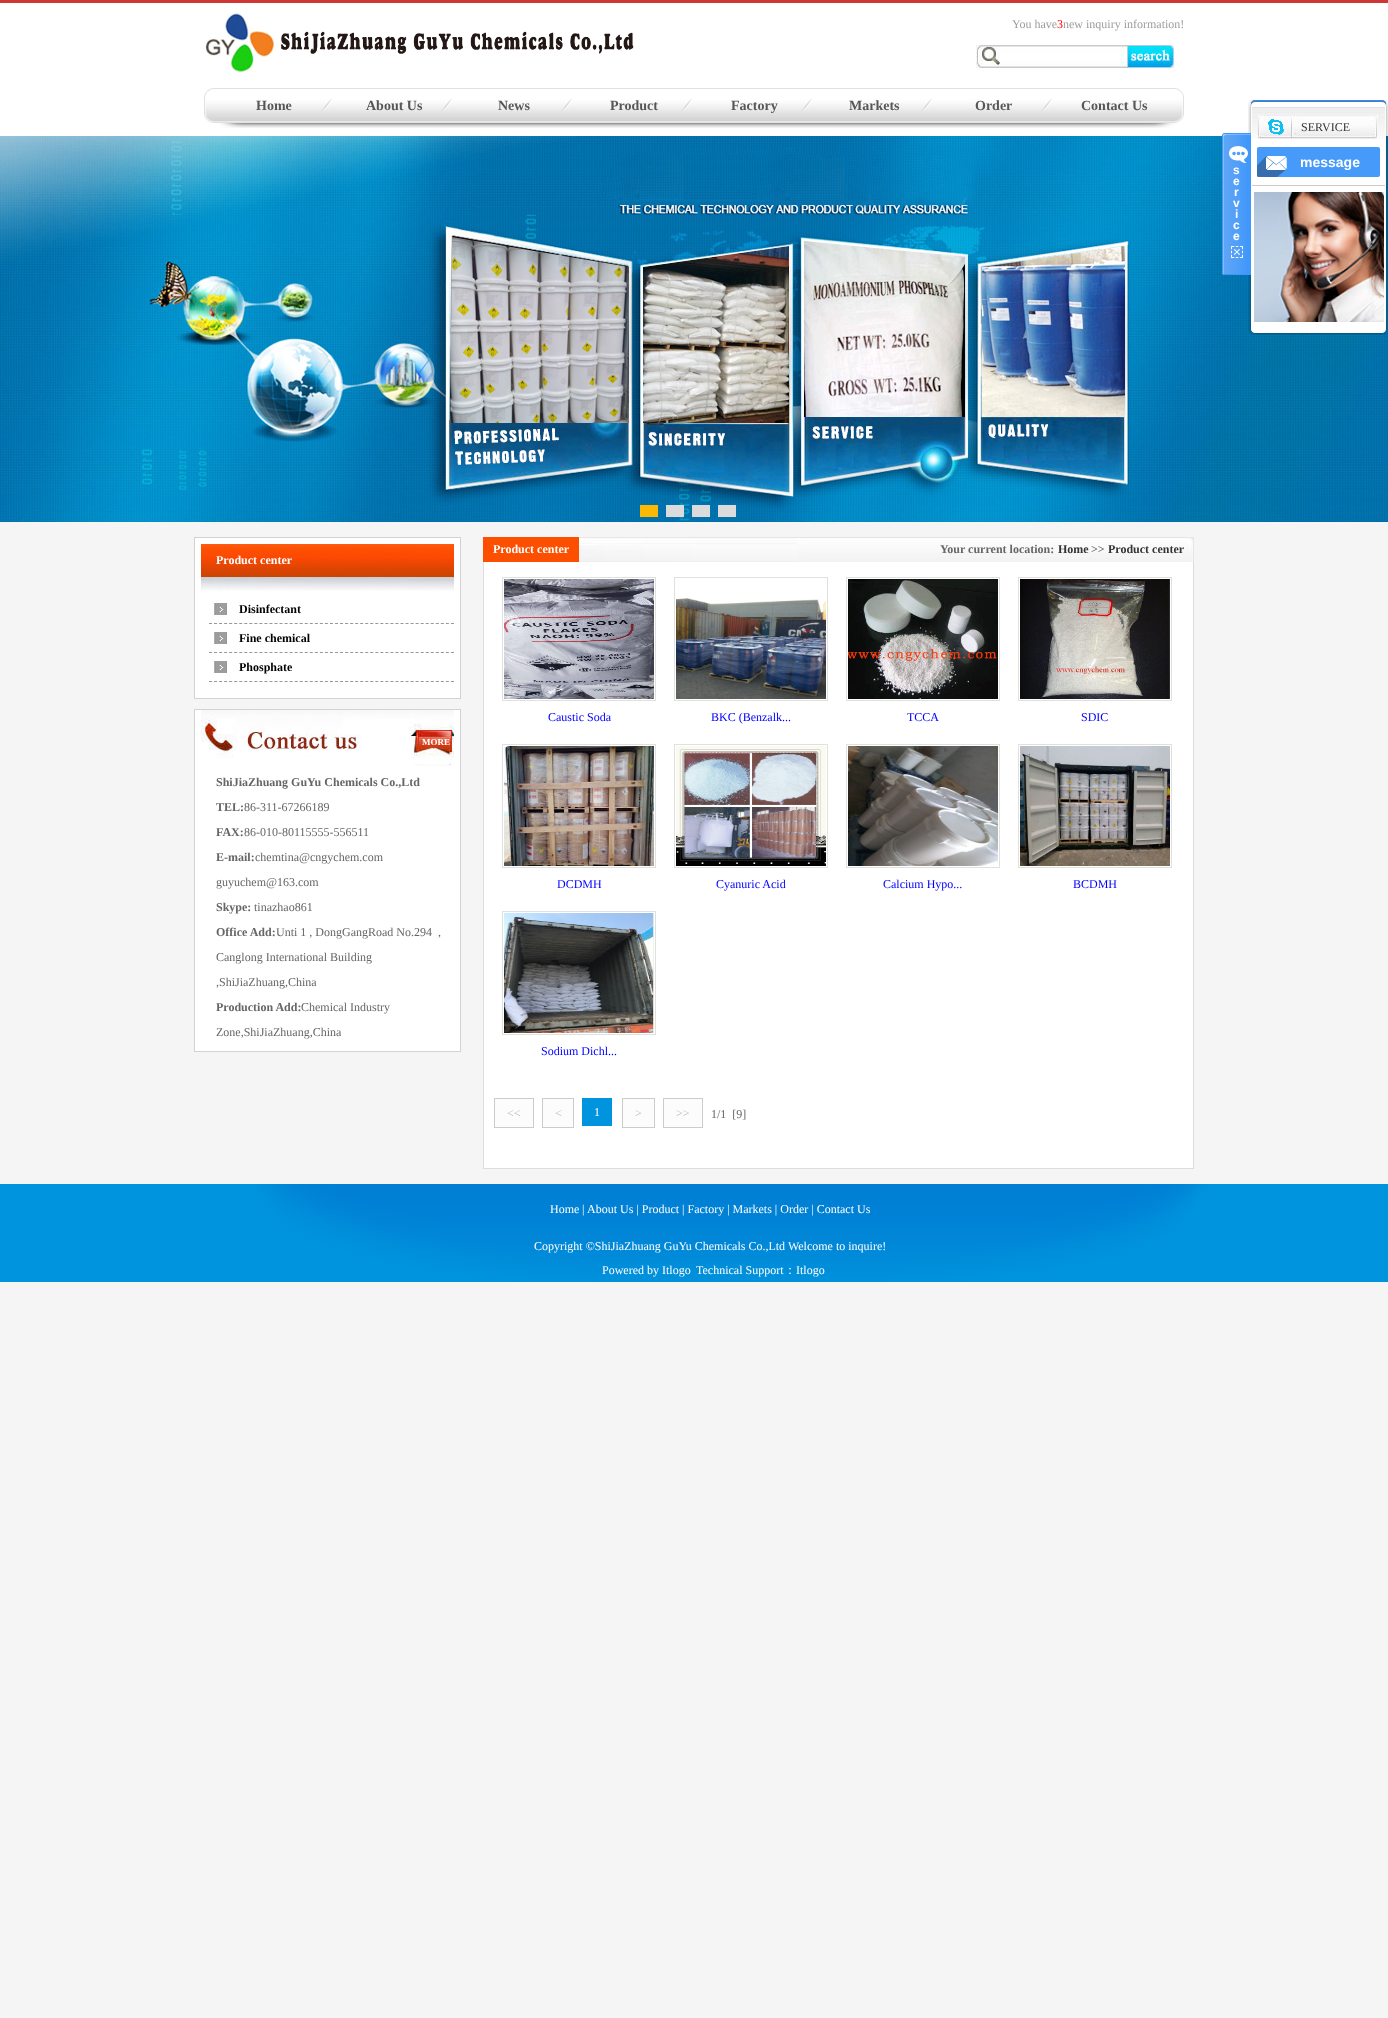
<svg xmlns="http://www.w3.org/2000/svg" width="1388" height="2018">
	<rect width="100%" height="100%" fill="#F5F5F5" />
	<rect x="0" y="3" width="1388" height="133" fill="#FFFFFF" />
	<rect x="0" y="0" width="1388" height="3" fill="#D03636" />
	<image x="204" y="13" width="430" height="59" href="assets/img1.png" />
	<text x="1012" y="28" font-family="Liberation Serif" font-size="12" fill="#9D9D9D">You have</text>
	<text x="1057" y="28" font-family="Liberation Serif" font-size="12" fill="#FF0000">3</text>
	<text x="1063" y="28" font-family="Liberation Serif" font-size="12" fill="#9D9D9D">new inquiry information!</text>
	<image x="976" y="45" width="198" height="23" href="assets/img2.png" />
	<image x="204" y="88" width="980" height="40" href="assets/img3.png" />
	<image x="321" y="98" width="11" height="15" href="assets/img4.png" />
	<text x="256" y="110" font-family="Liberation Serif" font-size="14" font-weight="700" fill="#575757">Home</text>
	<image x="441" y="98" width="11" height="15" href="assets/img4.png" />
	<text x="366" y="110" font-family="Liberation Serif" font-size="14" font-weight="700" fill="#575757">About Us</text>
	<image x="561" y="98" width="11" height="15" href="assets/img4.png" />
	<text x="498" y="110" font-family="Liberation Serif" font-size="14" font-weight="700" fill="#575757">News</text>
	<image x="681" y="98" width="11" height="15" href="assets/img4.png" />
	<text x="610" y="110" font-family="Liberation Serif" font-size="14" font-weight="700" fill="#575757">Product</text>
	<image x="801" y="98" width="11" height="15" href="assets/img4.png" />
	<text x="731" y="110" font-family="Liberation Serif" font-size="14" font-weight="700" fill="#575757">Factory</text>
	<image x="921" y="98" width="11" height="15" href="assets/img4.png" />
	<text x="849" y="110" font-family="Liberation Serif" font-size="14" font-weight="700" fill="#575757">Markets</text>
	<image x="1041" y="98" width="11" height="15" href="assets/img4.png" />
	<g font-family="Liberation Serif" font-size="14" font-weight="700" fill="#575757">
		<text x="975" y="110">Order</text>
		<text x="1081" y="110">Contact Us</text>
	</g>
	<image x="0" y="136" width="1388" height="386" href="assets/img5.png" />
	<rect x="640" y="505" width="18" height="12" fill="#FCB903" />
	<rect x="666" y="505" width="18" height="12" fill="#DBDBDB" />
	<rect x="692" y="505" width="18" height="12" fill="#DBDBDB" />
	<rect x="718" y="505" width="18" height="12" fill="#DBDBDB" />
	<image x="1248" y="100" width="140" height="7" href="assets/img6.png" />
	<image x="1248" y="107" width="140" height="220" href="assets/img7.png" />
	<image x="1252" y="107" width="133" height="32" href="assets/img8.png" />
	<image x="1258" y="115" width="120" height="24" href="assets/img9.png" />
	<image x="1268" y="119" width="16" height="16" href="assets/img10.png" />
	<text x="1301" y="131" font-family="Liberation Serif" font-size="12" fill="#333333">SERVICE</text>
	<rect x="1257" y="147" width="123" height="30" rx="2" fill="#459AFA" />
	<image x="1257" y="156" width="30" height="21" href="assets/img11.png" />
	<text x="1300" y="167" font-family="Liberation Sans" font-size="14" font-weight="700" fill="#FFFFFF">message</text>
	<rect x="1252" y="185" width="133" height="1" fill="#CCCCCC" />
	<image x="1254" y="192" width="130" height="130" href="assets/img12.png" />
	<image x="1248" y="327" width="140" height="8" href="assets/img13.png" />
	<image x="1222" y="133" width="29" height="142" href="assets/img14.png" />
	<g font-family="Liberation Sans" font-size="12" font-weight="700" fill="#FFFFFF">
		<text x="1233" y="174">s</text>
		<text x="1233" y="185">e</text>
		<text x="1234" y="196">r</text>
		<text x="1233" y="207">v</text>
		<text x="1235" y="218">i</text>
		<text x="1233" y="229">c</text>
		<text x="1233" y="240">e</text>
	</g>
	<image x="1231" y="246" width="12" height="12" href="assets/img15.png" />
	<rect x="194.5" y="537.5" width="266" height="161" fill="#FFFFFF" stroke="#D3D3D3" />
	<image x="201" y="544" width="253" height="47" href="assets/img16.png" />
	<text x="216" y="564" font-family="Liberation Serif" font-size="12" font-weight="700" fill="#FFFFFF">Product center</text>
	<image x="214" y="603" width="13" height="12" href="assets/img17.png" />
	<path d="M209 623.5H454" fill="none" stroke="#989898" stroke-dasharray="3 2.04" />
	<text x="239" y="613" font-family="Liberation Serif" font-size="12" font-weight="700" fill="#000000">Disinfectant</text>
	<image x="214" y="632" width="13" height="12" href="assets/img17.png" />
	<path d="M209 652.5H454" fill="none" stroke="#989898" stroke-dasharray="3 2.04" />
	<text x="239" y="642" font-family="Liberation Serif" font-size="12" font-weight="700" fill="#000000">Fine chemical</text>
	<image x="214" y="661" width="13" height="12" href="assets/img17.png" />
	<path d="M209 681.5H454" fill="none" stroke="#989898" stroke-dasharray="3 2.04" />
	<text x="239" y="671" font-family="Liberation Serif" font-size="12" font-weight="700" fill="#000000">Phosphate</text>
	<rect x="194.5" y="709.5" width="266" height="342" fill="#FFFFFF" stroke="#D3D3D3" />
	<image x="201" y="710" width="253" height="60" href="assets/img18.png" />
	<text x="422" y="745" font-family="Liberation Serif" font-size="9" font-weight="700" fill="#FFFFFF">MORE</text>
	<g font-family="Liberation Serif" font-size="12" font-weight="700" fill="#666666">
		<text x="216" y="786">ShiJiaZhuang GuYu Chemicals Co.,Ltd</text>
		<text x="216" y="811">TEL:</text>
	</g>
	<text x="244" y="811" font-family="Liberation Serif" font-size="12" fill="#666666">86-311-67266189</text>
	<text x="216" y="836" font-family="Liberation Serif" font-size="12" font-weight="700" fill="#666666">FAX:</text>
	<text x="244" y="836" font-family="Liberation Serif" font-size="12" fill="#666666">86-010-80115555-556511</text>
	<text x="216" y="861" font-family="Liberation Serif" font-size="12" font-weight="700" fill="#666666">E-mail:</text>
	<g font-family="Liberation Serif" font-size="12" fill="#666666">
		<text x="255" y="861">chemtina@cngychem.com</text>
		<text x="216" y="886">guyuchem@163.com</text>
	</g>
	<text x="216" y="911" font-family="Liberation Serif" font-size="12" font-weight="700" fill="#666666">Skype:</text>
	<text x="254" y="911" font-family="Liberation Serif" font-size="12" fill="#666666">tinazhao861</text>
	<text x="216" y="936" font-family="Liberation Serif" font-size="12" font-weight="700" fill="#666666">Office Add:</text>
	<g font-family="Liberation Serif" font-size="12" fill="#666666">
		<text x="276" y="936" xml:space="preserve">Unti 1 , DongGangRoad No.294  ,</text>
		<text x="216" y="961">Canglong International Building</text>
		<text x="216" y="986">,ShiJiaZhuang,China</text>
	</g>
	<text x="216" y="1011" font-family="Liberation Serif" font-size="12" font-weight="700" fill="#666666">Production Add:</text>
	<g font-family="Liberation Serif" font-size="12" fill="#666666">
		<text x="301" y="1011">Chemical Industry</text>
		<text x="216" y="1036">Zone,ShiJiaZhuang,China</text>
	</g>
	<rect x="484" y="562" width="709" height="606" fill="#FFFFFF" />
	<image x="579" y="537" width="615" height="25" href="assets/img19.png" />
	<rect x="483" y="537" width="96" height="25" fill="#FC5000" />
	<text x="493" y="553" font-family="Liberation Serif" font-size="12" font-weight="700" fill="#FFFFFF">Product center</text>
	<text x="940" y="553" font-family="Liberation Serif" font-size="12" font-weight="700" fill="#666666">Your current location:</text>
	<text x="1058" y="553" font-family="Liberation Serif" font-size="12" font-weight="700" fill="#333333">Home</text>
	<text x="1091" y="553" font-family="Liberation Serif" font-size="12" font-weight="700" fill="#666666">&gt;&gt;</text>
	<text x="1108" y="553" font-family="Liberation Serif" font-size="12" font-weight="700" fill="#333333">Product center</text>
	<rect x="1193" y="562" width="1" height="607" fill="#DDDDDD" />
	<rect x="483" y="1168" width="711" height="1" fill="#DDDDDD" />
	<rect x="483" y="562" width="1" height="607" fill="#DDDDDD" />
	<rect x="502.5" y="577.5" width="153" height="123" fill="none" stroke="#E0E1DC" />
	<image x="504" y="579" width="150" height="120" href="assets/img20.png" />
	<text x="548" y="721" font-family="Liberation Serif" font-size="12" fill="#0000FF">Caustic Soda</text>
	<rect x="674.5" y="577.5" width="153" height="123" fill="none" stroke="#E0E1DC" />
	<image x="676" y="598" width="150" height="101" href="assets/img21.png" />
	<text x="711" y="721" font-family="Liberation Serif" font-size="12" fill="#0000FF">BKC (Benzalk...</text>
	<rect x="846.5" y="577.5" width="153" height="123" fill="none" stroke="#E0E1DC" />
	<image x="848" y="579" width="150" height="120" href="assets/img22.png" />
	<text x="907" y="721" font-family="Liberation Serif" font-size="12" fill="#0000FF">TCCA</text>
	<rect x="1018.5" y="577.5" width="153" height="123" fill="none" stroke="#E0E1DC" />
	<image x="1020" y="579" width="150" height="120" href="assets/img23.png" />
	<text x="1081" y="721" font-family="Liberation Serif" font-size="12" fill="#0000FF">SDIC</text>
	<rect x="502.5" y="744.5" width="153" height="123" fill="none" stroke="#E0E1DC" />
	<image x="504" y="746" width="150" height="120" href="assets/img24.png" />
	<text x="557" y="888" font-family="Liberation Serif" font-size="12" fill="#0000FF">DCDMH</text>
	<rect x="674.5" y="744.5" width="153" height="123" fill="none" stroke="#E0E1DC" />
	<image x="676" y="746" width="150" height="120" href="assets/img25.png" />
	<text x="716" y="888" font-family="Liberation Serif" font-size="12" fill="#0000FF">Cyanuric Acid</text>
	<rect x="846.5" y="744.5" width="153" height="123" fill="none" stroke="#E0E1DC" />
	<image x="848" y="746" width="150" height="120" href="assets/img26.png" />
	<text x="883" y="888" font-family="Liberation Serif" font-size="12" fill="#0000FF">Calcium Hypo...</text>
	<rect x="1018.5" y="744.5" width="153" height="123" fill="none" stroke="#E0E1DC" />
	<image x="1020" y="746" width="150" height="120" href="assets/img27.png" />
	<text x="1073" y="888" font-family="Liberation Serif" font-size="12" fill="#0000FF">BCDMH</text>
	<rect x="502.5" y="911.5" width="153" height="123" fill="none" stroke="#E0E1DC" />
	<image x="504" y="913" width="150" height="120" href="assets/img28.png" />
	<text x="541" y="1055" font-family="Liberation Serif" font-size="12" fill="#0000FF">Sodium Dichl...</text>
	<rect x="494.5" y="1098.5" width="39" height="29" fill="#FCFCFC" stroke="#CCCCCC" />
	<text x="507" y="1117" font-family="Liberation Serif" font-size="12" fill="#BBBBBB">&lt;&lt;</text>
	<rect x="542.5" y="1098.5" width="31" height="29" fill="#FCFCFC" stroke="#CCCCCC" />
	<text x="555" y="1117" font-family="Liberation Serif" font-size="12" fill="#BBBBBB">&lt;</text>
	<rect x="582" y="1098" width="30" height="28" fill="#0094DE" />
	<text x="594" y="1116" font-family="Liberation Serif" font-size="12" fill="#FFFFFF">1</text>
	<rect x="622.5" y="1098.5" width="32" height="29" fill="#FCFCFC" stroke="#CCCCCC" />
	<text x="635" y="1117" font-family="Liberation Serif" font-size="12" fill="#BBBBBB">&gt;</text>
	<rect x="663.5" y="1098.5" width="39" height="29" fill="#FCFCFC" stroke="#CCCCCC" />
	<text x="676" y="1117" font-family="Liberation Serif" font-size="12" fill="#BBBBBB">&gt;&gt;</text>
	<text x="711" y="1118" font-family="Liberation Serif" font-size="12" fill="#666666" xml:space="preserve">1/1  [9]</text>
	<image x="0" y="1184" width="1388" height="98" href="assets/img29.png" />
	<g font-family="Liberation Serif" font-size="12" fill="#FFFFFF">
		<text x="550" y="1213">Home</text>
		<text x="582" y="1213">|</text>
		<text x="587" y="1213">About Us | Product | Factory | Markets | Order | Contact Us</text>
		<text x="534" y="1250">Copyright ©ShiJiaZhuang GuYu Chemicals Co.,Ltd Welcome to inquire!</text>
		<text x="602" y="1274">Powered by Itlogo</text>
		<text x="696" y="1274">Technical Support</text>
	</g>
	<text x="784" y="1274" font-family="WenQuanYi Zen Hei" font-size="12" font-weight="500" fill="#FFFFFF">：</text>
	<text x="796" y="1274" font-family="Liberation Serif" font-size="12" fill="#FFFFFF">Itlogo</text>
</svg>
